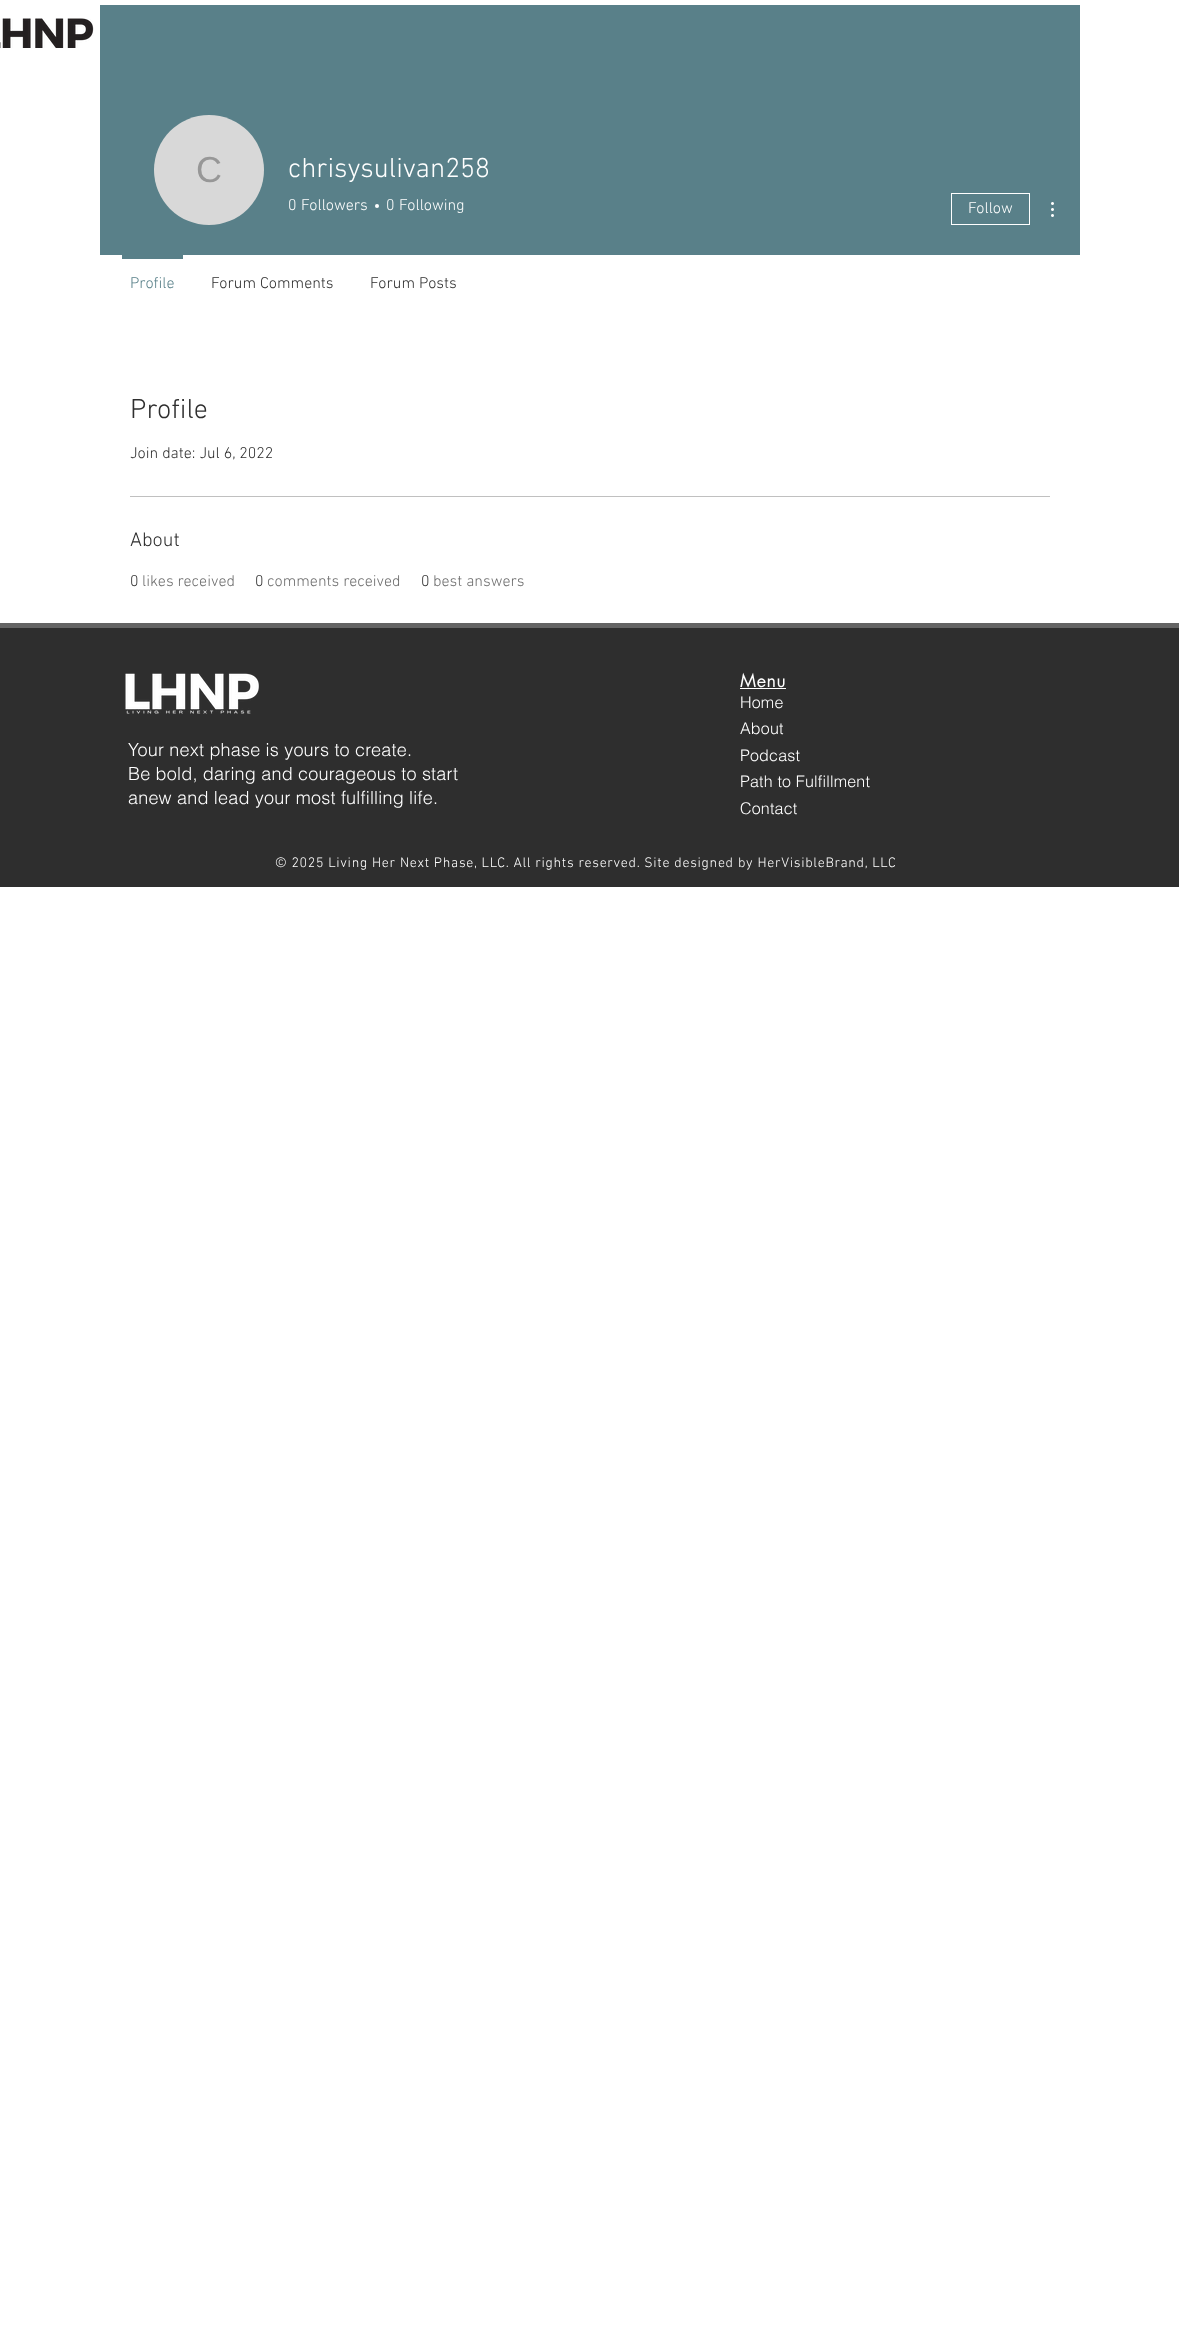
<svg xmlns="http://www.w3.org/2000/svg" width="1179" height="2332">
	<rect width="100%" height="100%" fill="#FFFFFF" />
	<image x="0" y="18" width="94" height="30" href="assets/img1.png" />
	<rect x="100" y="5" width="980" height="250" fill="#598089" />
	<circle cx="209" cy="170" r="55" fill="#D8D8D8" />
	<text x="196" y="182" font-family="Liberation Sans" font-size="36" fill="#979797">C</text>
	<text x="288" y="177" font-family="'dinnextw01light'" font-size="28" font-weight="300" fill="#FFFFFF">chrisysulivan258</text>
	<g font-family="'dinnextw01light'" font-size="16" font-weight="300" fill="#FFFFFF">
		<text x="288" y="210">0</text>
		<text x="301" y="210">Followers</text>
	</g>
	<circle cx="377" cy="206" r="2" fill="#FFFFFF" />
	<g font-family="'dinnextw01light'" font-size="16" font-weight="300" fill="#FFFFFF">
		<text x="386" y="210">0</text>
		<text x="399" y="210">Following</text>
	</g>
	<rect x="951.5" y="193.5" width="78" height="31" fill="none" stroke="#FFFFFF" />
	<text x="968" y="213" font-family="'dinnextw01light'" font-size="16" font-weight="300" fill="#FFFFFF">Follow</text>
	<image x="1051" y="202" width="3" height="15" href="assets/img2.png" />
	<rect x="122" y="255" width="61" height="4" fill="#598089" />
	<text x="130" y="288" font-family="'dinnextw01light'" font-size="16" font-weight="300" fill="#598089">Profile</text>
	<g font-family="'dinnextw01light'" font-size="16" font-weight="300" fill="#2E2E2E">
		<text x="211" y="288">Forum Comments</text>
		<text x="370" y="288">Forum Posts</text>
	</g>
	<text x="130" y="418" font-family="'dinnextw01light'" font-size="28" font-weight="300" fill="#2E2E2E">Profile</text>
	<text x="130" y="458" font-family="'dinnextw01light'" font-size="16" font-weight="300" fill="#2E2E2E">Join date: Jul 6, 2022</text>
	<rect x="130" y="496" width="920" height="1" fill="#C0C0C0" />
	<text x="130" y="546" font-family="'dinnextw01light'" font-size="20" font-weight="300" fill="#2E2E2E">About</text>
	<text x="130" y="586" font-family="'dinnextw01light'" font-size="16" font-weight="300" fill="#2E2E2E">0</text>
	<text x="142" y="586" font-family="'dinnextw01light'" font-size="16" font-weight="300" fill="#6D6D6D">likes received</text>
	<text x="255" y="586" font-family="'dinnextw01light'" font-size="16" font-weight="300" fill="#2E2E2E">0</text>
	<text x="267" y="586" font-family="'dinnextw01light'" font-size="16" font-weight="300" fill="#6D6D6D">comments received</text>
	<text x="421" y="586" font-family="'dinnextw01light'" font-size="16" font-weight="300" fill="#2E2E2E">0</text>
	<text x="433" y="586" font-family="'dinnextw01light'" font-size="16" font-weight="300" fill="#6D6D6D">best answers</text>
	<rect x="0" y="623" width="1179" height="5" fill="#646464" />
	<rect x="0" y="628" width="1179" height="259" fill="#2E2E2E" />
	<image x="125" y="673" width="134" height="41" href="assets/img3.png" />
	<text x="740" y="687" font-family="futura" font-size="18" letter-spacing="0.5" fill="#FFFFFF">Menu</text>
	<rect x="740" y="688" width="46" height="1" fill="#FFFFFF" />
	<g font-family="helvetica" font-size="18" font-weight="300" letter-spacing="0.2" fill="#FFFFFF">
		<text x="128" y="756">Your next phase is yours to create.</text>
		<text x="128" y="780">Be bold, daring and courageous to start</text>
		<text x="128" y="804">anew and lead your most fulfilling life.</text>
	</g>
	<g font-family="helvetica" font-size="16" font-weight="300" letter-spacing="0.2" fill="#FFFFFF">
		<text x="740" y="708">Home</text>
		<text x="740" y="734">About</text>
		<text x="740" y="761">Podcast</text>
		<text x="740" y="787">Path to Fulfillment</text>
		<text x="740" y="814">Contact</text>
	</g>
	<text x="275" y="867" font-family="'dinnextw01light'" font-size="14" font-weight="300" letter-spacing="0.7" fill="#FFFFFF">© 2025 Living Her Next Phase, LLC. All rights reserved. Site designed by HerVisibleBrand, LLC</text>
</svg>
